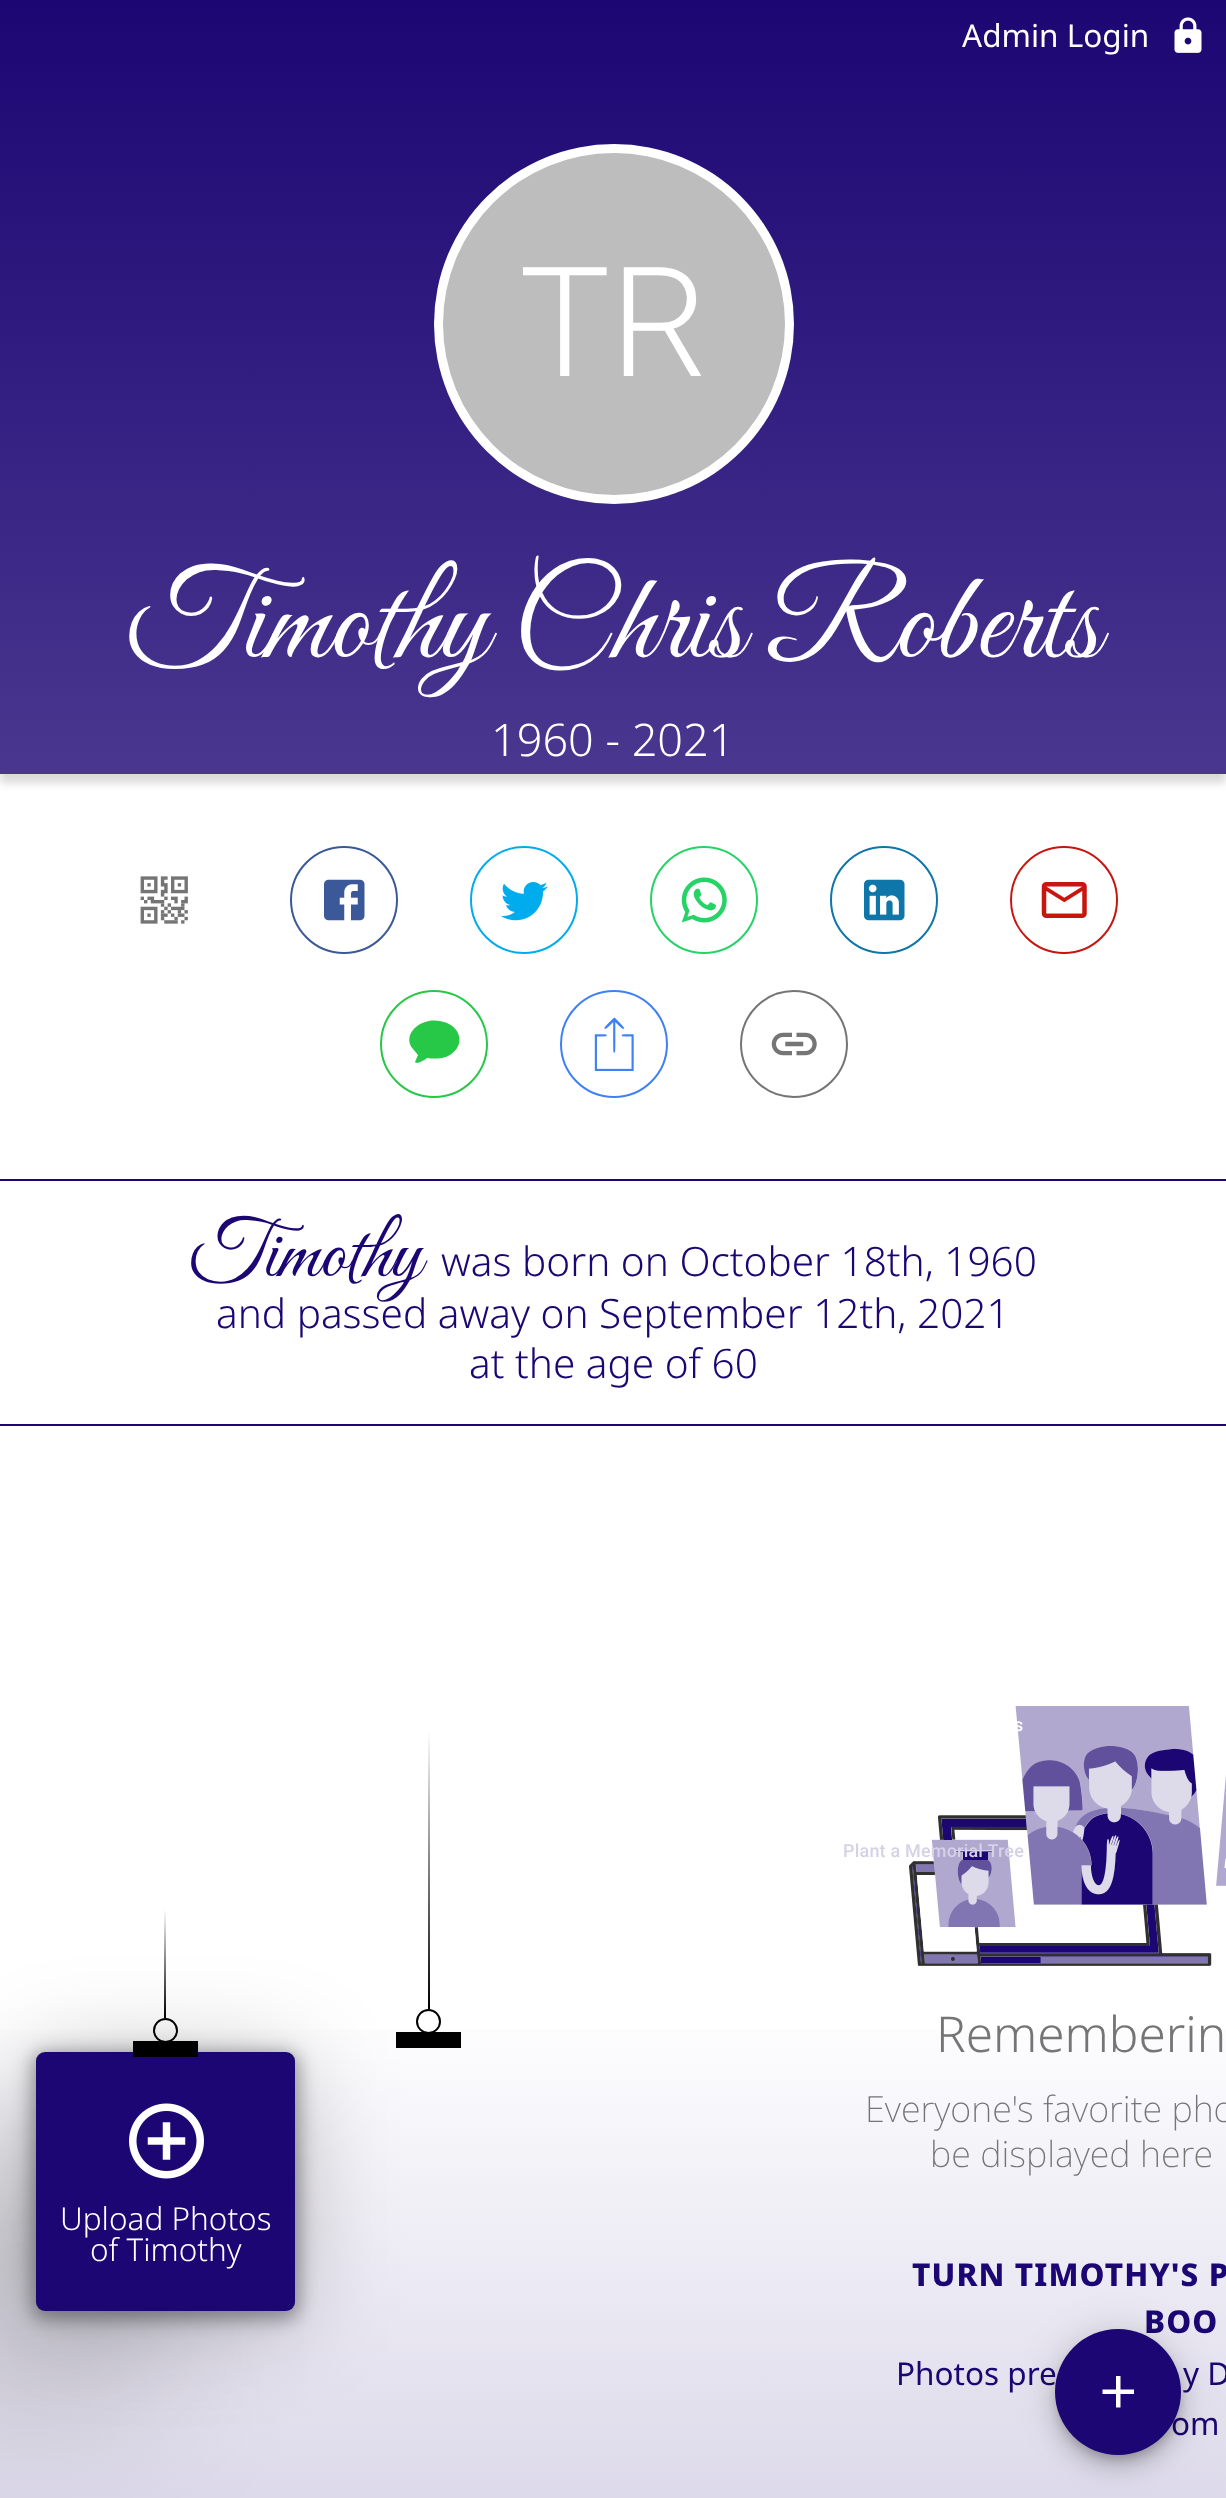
<svg xmlns="http://www.w3.org/2000/svg" width="1226" height="2498">
	<defs>
		<linearGradient id="g1" gradientUnits="userSpaceOnUse" x1="613" y1="0" x2="613" y2="774"><stop offset="0" stop-color="#1C0673" /><stop offset="1" stop-color="#49378F" /></linearGradient>
		<linearGradient id="g2" gradientUnits="userSpaceOnUse" x1="613" y1="1517" x2="613" y2="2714"><stop offset="0.4" stop-color="#FFFFFF" /><stop offset="1" stop-color="#CEC9E1" /></linearGradient>
		<linearGradient id="g3" gradientUnits="userSpaceOnUse" x1="429" y1="1730" x2="429" y2="2009"><stop offset="0" stop-color="#FFFFFF" /><stop offset="1" stop-color="#000000" /></linearGradient>
		<linearGradient id="g4" gradientUnits="userSpaceOnUse" x1="165" y1="1909" x2="165" y2="2017"><stop offset="0" stop-color="#FFFFFF" /><stop offset="1" stop-color="#000000" /></linearGradient>
	</defs>
	<rect width="100%" height="100%" fill="#FFFFFF" />
	<rect x="0" y="9" width="1226" height="774" fill="#000000" fill-opacity="0.15" filter="blur(4.5px)" />
	<rect x="0" y="0" width="1226" height="774" fill="url(#g1)" />
	<text x="962" y="47" font-family="Noto Sans" font-size="31.5" fill="#FFFFFF">Admin Login</text>
	<image x="1174" y="17" width="28" height="36" href="assets/img1.png" />
	<circle cx="614" cy="324" r="180" fill="#FFFFFF" />
	<circle cx="614" cy="324" r="171" fill="#BDBDBD" />
	<text x="519" y="376" font-family="Roboto" font-size="153" font-weight="300" fill="#FFFFFF">TR</text>
	<text x="126" y="657" font-family="Great Vibes" font-size="126" fill="#FFFFFF">Timothy Chris Roberts</text>
	<text x="491" y="756" font-family="Noto Sans" font-size="45" font-weight="300" fill="#FFFFFF">1960 - 2021</text>
	<image x="140" y="876" width="48" height="48" href="assets/img2.png" />
	<circle cx="344" cy="900" r="53" fill="none" stroke="#3B5998" stroke-width="2" />
	<image x="324" y="879" width="41" height="42" href="assets/img3.png" />
	<circle cx="524" cy="900" r="53" fill="none" stroke="#00ACEE" stroke-width="2" />
	<image x="501" y="882" width="47" height="39" href="assets/img4.png" />
	<circle cx="704" cy="900" r="53" fill="none" stroke="#25D366" stroke-width="2" />
	<image x="681" y="877" width="46" height="46" href="assets/img5.png" />
	<circle cx="884" cy="900" r="53" fill="none" stroke="#0E76A8" stroke-width="2" />
	<image x="864" y="879" width="41" height="42" href="assets/img6.png" />
	<circle cx="1064" cy="900" r="53" fill="none" stroke="#C71610" stroke-width="2" />
	<image x="1041" y="882" width="46" height="36" href="assets/img7.png" />
	<circle cx="434" cy="1044" r="53" fill="none" stroke="#27C848" stroke-width="2" />
	<path d="M429 1021C423 1022 417 1025 413 1030C408 1036 408 1044 413 1049L418 1055L415 1062C417 1065 426 1059 427 1058C434 1059 442 1059 448 1056C464 1048 463 1030 447 1023C442 1021 435 1020 429 1021Z" fill="#27C848" />
	<circle cx="614" cy="1044" r="53" fill="none" stroke="#3E80F5" stroke-width="2" />
	<image x="594" y="1017" width="40" height="54" href="assets/img8.png" />
	<circle cx="794" cy="1044" r="53" fill="none" stroke="#757575" stroke-width="2" />
	<image x="771" y="1032" width="46" height="24" href="assets/img9.png" />
	<rect x="0" y="1179" width="1226" height="2" fill="#1C0673" />
	<rect x="0" y="1424" width="1226" height="2" fill="#1C0673" />
	<text x="189" y="1276" font-family="Great Vibes" font-size="81" fill="#1C0673">Timothy</text>
	<g font-family="Noto Sans" font-size="40.5" font-weight="300" fill="#1C0673">
		<text x="441" y="1276">was born on October 18th, 1960</text>
		<text x="216" y="1328">and passed away on September 12th, 2021</text>
		<text x="469" y="1378">at the age of 60</text>
	</g>
	<rect x="0" y="2029" width="1226" height="469" fill="url(#g2)" />
	<rect x="428" y="1730" width="2" height="279" fill="url(#g3)" />
	<rect x="396" y="2032" width="65" height="16" fill="#000000" />
	<circle cx="428.5" cy="2021.5" r="11.5" fill="none" stroke="#000000" stroke-width="2" />
	<rect x="36" y="2061" width="259" height="259" rx="9" fill="#000000" fill-opacity="0.25" filter="blur(49.5px)" />
	<rect x="-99" y="2151" width="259" height="259" rx="9" fill="#000000" fill-opacity="0.15" filter="blur(72px)" />
	<rect x="164" y="1910" width="2" height="108" fill="url(#g4)" />
	<rect x="32" y="2052" width="267" height="268" rx="14" fill="#000000" fill-opacity="0.35" filter="blur(9px)" />
	<rect x="36" y="2052" width="259" height="259" rx="9" fill="#1C0673" />
	<rect x="133" y="2041" width="65" height="16" fill="#000000" />
	<circle cx="165.5" cy="2030.5" r="11.5" fill="none" stroke="#000000" stroke-width="2" />
	<image x="129" y="2103" width="75" height="76" href="assets/img10.png" />
	<g font-family="Noto Sans" font-size="31.5" font-weight="300" fill="#FFFFFF">
		<text x="60" y="2230">Upload Photos</text>
		<text x="90" y="2261">of Timothy</text>
	</g>
	<image x="909" y="1706" width="317" height="260" href="assets/img11.png" />
	<text x="936" y="2052" font-family="Noto Sans" font-size="49.5" font-weight="300" fill="#757575">Rememberin</text>
	<g font-family="Noto Sans" font-size="36" font-weight="200" fill="#757575">
		<text x="865" y="2122">Everyone's favorite pho</text>
		<text x="930" y="2167">be displayed here</text>
	</g>
	<g font-family="Noto Sans" font-size="31.5" font-weight="800" letter-spacing="1.1" fill="#1C0673">
		<text x="912" y="2286">TURN TIMOTHY'S P</text>
		<text x="1144" y="2333">BOO</text>
	</g>
	<g font-family="Noto Sans" font-size="31.5" fill="#1C0673">
		<text x="896" y="2385">Photos pre</text>
		<text x="1183" y="2385">y D</text>
		<text x="1171" y="2435">om</text>
	</g>
	<text x="1014" y="1731" font-family="Roboto" font-size="18" font-weight="500" letter-spacing="0.2" fill="#FFFFFF">s</text>
	<text x="843" y="1857" font-family="Roboto" font-size="18" font-weight="500" letter-spacing="0.2" fill="#D6D2E6">Plant a Memorial Tree</text>
	<rect x="1055" y="2331" width="126" height="126" rx="63" fill="#000000" fill-opacity="0.12" filter="blur(20px)" />
	<rect x="1055" y="2342" width="126" height="126" rx="63" fill="#000000" fill-opacity="0.14" filter="blur(11px)" />
	<rect x="1058" y="2338" width="121" height="121" rx="60.5" fill="#000000" fill-opacity="0.2" filter="blur(5.5px)" />
	<circle cx="1118" cy="2392" r="63" fill="#1C0673" />
	<image x="1102" y="2376" width="32" height="32" href="assets/img12.png" />
</svg>
